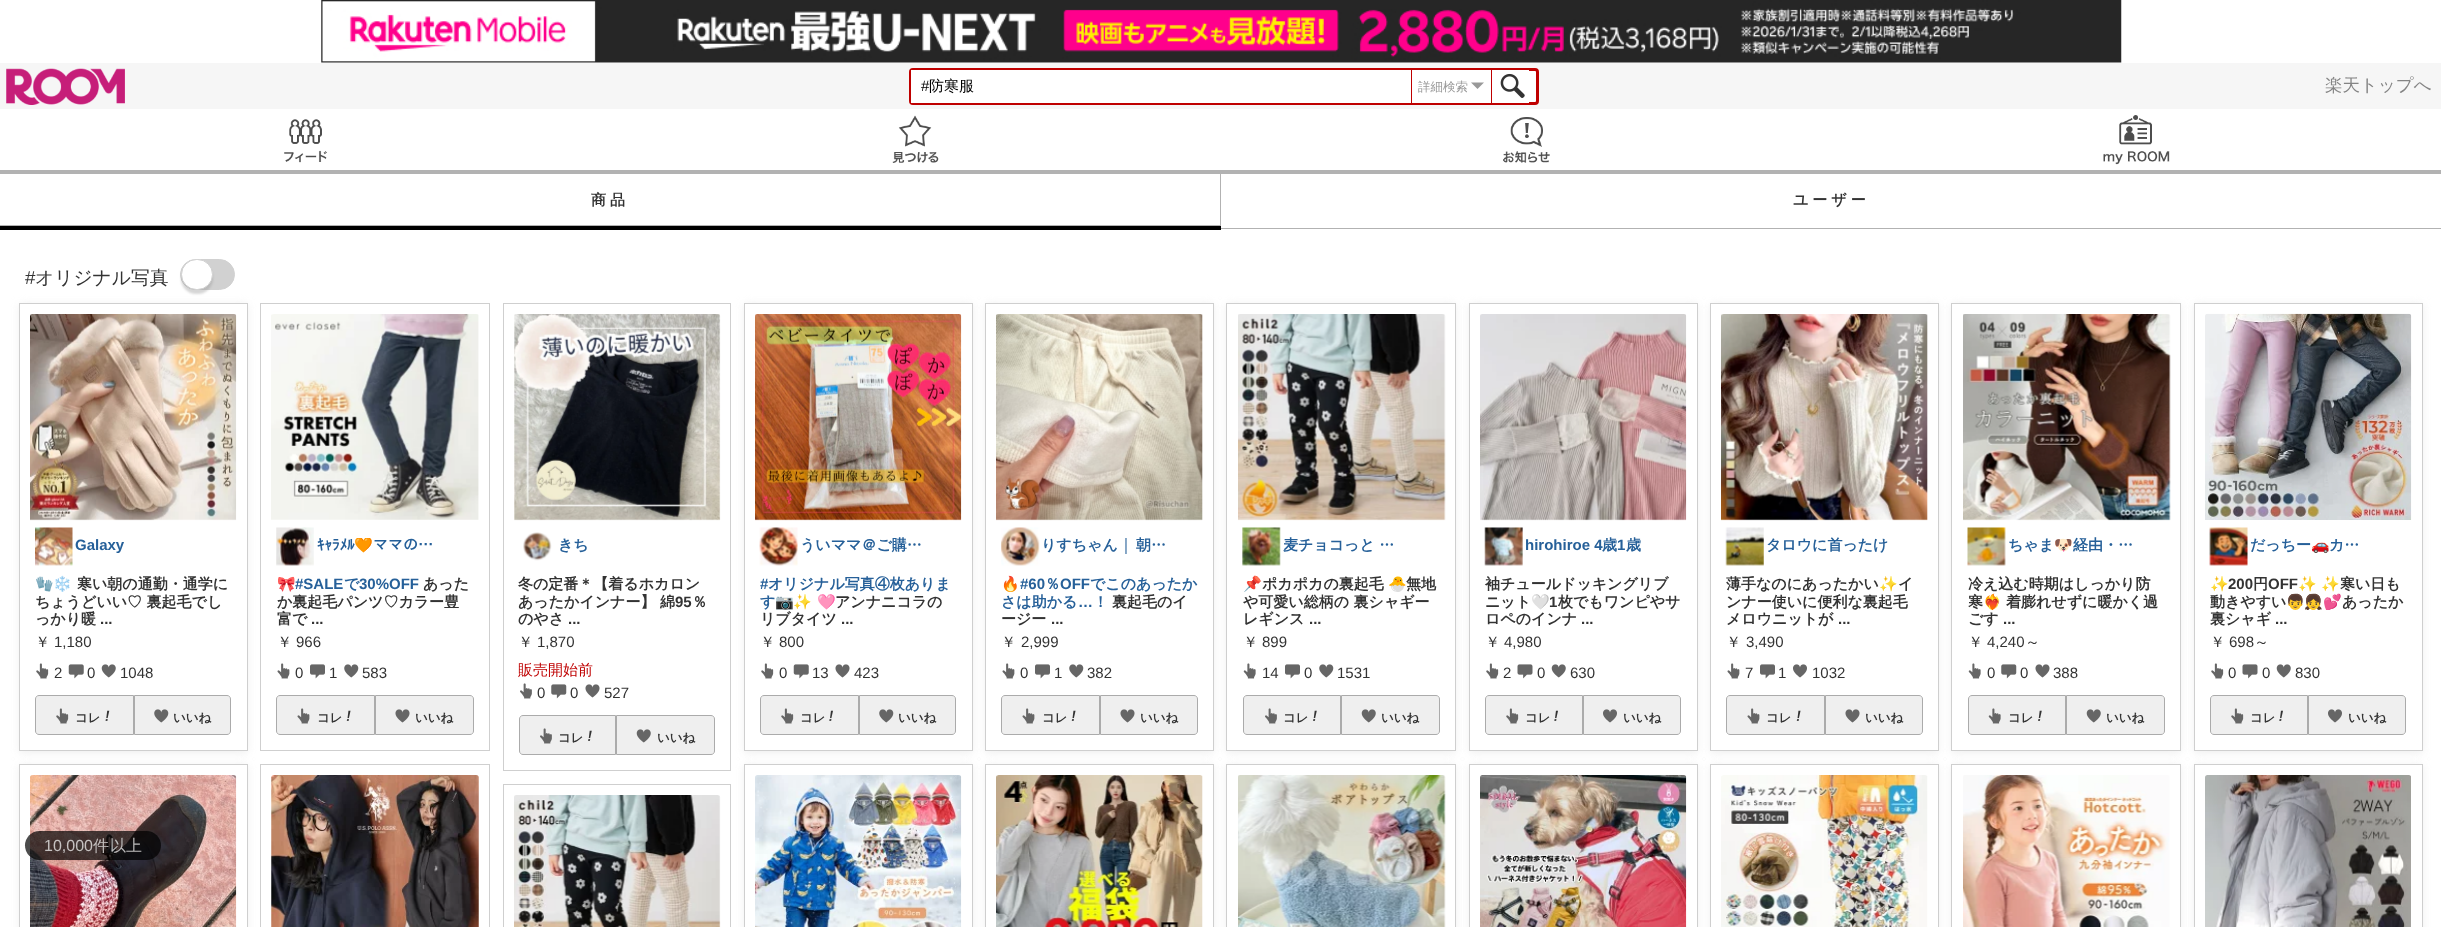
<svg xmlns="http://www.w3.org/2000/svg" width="2441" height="927">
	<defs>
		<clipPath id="clip1"><rect x="316" y="538" width="125" height="16" /></clipPath>
		<clipPath id="clip2"><rect x="1041" y="538" width="125" height="16" /></clipPath>
		<clipPath id="clip3"><rect x="2008" y="538" width="125" height="16" /></clipPath>
		<clipPath id="clip4"><rect x="2250" y="538" width="125" height="16" /></clipPath>
	</defs>
	<rect width="100%" height="100%" fill="#FFFFFF" />
	<image x="321" y="0" width="1801" height="63" href="assets/img1.png" />
	<rect x="0" y="63" width="2441" height="46" fill="#F6F6F6" />
	<rect x="910.5" y="69.5" width="627" height="34" rx="2.5" fill="#FFFFFF" stroke="#BF0000" stroke-width="3" />
	<rect x="911" y="70" width="500" height="33" fill="#FFFFFF" />
	<text x="921" y="91" font-family="Liberation Sans" font-size="15" fill="#000000">#</text>
	<text x="929" y="91" font-family="WenQuanYi Zen Hei" font-size="15" font-weight="500" fill="#000000">防寒服</text>
	<rect x="1412" y="70" width="79" height="33" fill="#FFFFFF" />
	<rect x="1411" y="70" width="1" height="33" fill="#BF0000" />
	<text x="1418" y="91" font-family="WenQuanYi Zen Hei" font-size="12.5" font-weight="500" fill="#999999">詳細検索</text>
	<path d="M1471 82.5H1484L1477.5 89Z" fill="#999999" />
	<rect x="1492" y="70" width="37" height="33" fill="#FFFFFF" />
	<rect x="1491" y="70" width="1" height="33" fill="#BF0000" />
	<image x="1500" y="73" width="25" height="25" href="assets/img2.png" />
	<image x="6" y="68" width="119" height="37" href="assets/img3.png" />
	<text x="2325" y="91" font-family="WenQuanYi Zen Hei" font-size="17.5" font-weight="500" fill="#848484">楽天トップへ</text>
	<image x="892" y="115" width="47" height="48" href="assets/img4.png" />
	<rect x="1221" y="170" width="1220" height="4" fill="#B2B2B2" />
	<image x="2103" y="115" width="67" height="50" href="assets/img5.png" />
	<rect x="0" y="170" width="1221" height="4" fill="#B2B2B2" />
	<image x="284" y="119" width="43" height="44" href="assets/img6.png" />
	<image x="1503" y="117" width="47" height="46" href="assets/img7.png" />
	<rect x="0" y="226" width="1221" height="4" fill="#000000" />
	<rect x="1220" y="174" width="1" height="52" fill="#B2B2B2" />
	<rect x="0" y="225" width="1221" height="1" fill="#B2B2B2" />
	<text x="591" y="205" font-family="WenQuanYi Zen Hei" font-size="15" font-weight="700" letter-spacing="4" fill="#333333">商品</text>
	<rect x="1221" y="228" width="1220" height="1" fill="#B2B2B2" />
	<text x="1793" y="205" font-family="WenQuanYi Zen Hei" font-size="15" font-weight="700" letter-spacing="4" fill="#333333">ユーザー</text>
	<text x="25" y="284" font-family="Liberation Sans" font-size="18.75" fill="#333333">#</text>
	<text x="35" y="284" font-family="WenQuanYi Zen Hei" font-size="18.75" font-weight="500" fill="#333333">オリジナル写真</text>
	<rect x="180.5" y="259.5" width="54" height="30" rx="15" fill="#D1D1D1" stroke="#D1D1D1" />
	<rect x="181" y="263" width="32" height="31" rx="15.5" fill="#999999" fill-opacity="0.4" filter="blur(1px)" />
	<rect x="181.5" y="259.5" width="31" height="30" rx="15" fill="#FFFFFF" stroke="#D1D1D1" />
	<rect x="19" y="304" width="229" height="449" rx="4" fill="#EFEFEF" filter="blur(4px)" />
	<rect x="19" y="303" width="229" height="448" rx="4" fill="#FFFFFF" />
	<rect x="19.5" y="303.5" width="228" height="447" fill="none" stroke="#CFCFCF" />
	<image x="30" y="314" width="207" height="207" href="assets/img8.png" />
	<image x="35" y="527" width="38" height="39" href="assets/img9.png" />
	<text x="75" y="550" font-family="Liberation Sans" font-size="15" font-weight="700" fill="#266099">Galaxy</text>
	<text x="35" y="589" font-family="Noto Color Emoji" font-size="15" font-weight="700" fill="#333333">🧤❄️</text>
	<g font-family="WenQuanYi Zen Hei" font-size="15" font-weight="700" fill="#333333">
		<text x="77" y="589">寒い朝の通勤・通学に</text>
		<text x="35" y="607">ちょうどいい♡ 裏起毛でし</text>
		<text x="35" y="624">っかり暖</text>
	</g>
	<text x="100" y="624" font-family="Liberation Sans" font-size="15" font-weight="700" fill="#333333">...</text>
	<text x="35" y="647" font-family="WenQuanYi Zen Hei" font-size="15" font-weight="500" fill="#333333">￥</text>
	<text x="54" y="647" font-family="Liberation Sans" font-size="15" fill="#333333">1,180</text>
	<image x="36" y="663" width="13" height="16" href="assets/img10.png" />
	<text x="54" y="678" font-family="Liberation Sans" font-size="15" fill="#333333">2</text>
	<image x="68" y="664" width="16" height="15" href="assets/img11.png" />
	<text x="87" y="678" font-family="Liberation Sans" font-size="15" fill="#333333">0</text>
	<image x="101" y="664" width="15" height="14" href="assets/img12.png" />
	<text x="120" y="678" font-family="Liberation Sans" font-size="15" fill="#333333">1048</text>
	<path d="M39 695.5H133.5V734.5H39C37 734.5 35.5 733 35.5 731V699C35.5 697 37 695.5 39 695.5Z" fill="#EFEFEF" stroke="#ABABAB" />
	<image x="56" y="708" width="13" height="16" href="assets/img13.png" />
	<text x="75" y="722" font-family="WenQuanYi Zen Hei" font-size="12.5" font-weight="700" fill="#333333">コレ</text>
	<image x="105" y="710" width="5" height="11" href="assets/img14.png" />
	<path d="M134.5 695.5H227C229 695.5 230.5 697 230.5 699V731C230.5 733 229 734.5 227 734.5H134.5Z" fill="#EFEFEF" stroke="#ABABAB" />
	<image x="154" y="709" width="15" height="14" href="assets/img15.png" />
	<text x="173" y="722" font-family="WenQuanYi Zen Hei" font-size="12.5" font-weight="700" fill="#333333">いいね</text>
	<rect x="19" y="765" width="229" height="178" rx="4" fill="#EFEFEF" filter="blur(4px)" />
	<rect x="19" y="764" width="229" height="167" rx="4" fill="#FFFFFF" />
	<rect x="19.5" y="764.5" width="228" height="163" fill="none" stroke="#CFCFCF" />
	<image x="30" y="775" width="207" height="152" href="assets/img16.png" />
	<rect x="260.5" y="303.5" width="229" height="447" fill="none" stroke="#CFCFCF" />
	<image x="271" y="314" width="208" height="206" href="assets/img17.png" />
	<image x="276" y="527" width="38" height="39" href="assets/img18.png" />
	<text x="317" y="550" font-family="IPAGothic" font-size="15" font-weight="700" fill="#266099">ｷｬﾗﾒﾙ</text>
	<g clip-path="url(#clip1)">
		<text x="354" y="550" font-family="Noto Color Emoji" font-size="15" font-weight="700" fill="#266099">🧡</text>
	</g>
	<text x="373" y="550" font-family="IPAGothic" font-size="15" font-weight="700" fill="#266099">ママの…</text>
	<text x="277" y="589" font-family="Noto Color Emoji" font-size="15" font-weight="700" fill="#333333">🎀</text>
	<text x="295" y="589" font-family="Liberation Sans" font-size="15" font-weight="700" fill="#266099">#SALE</text>
	<text x="344" y="589" font-family="WenQuanYi Zen Hei" font-size="15" font-weight="700" fill="#266099">で</text>
	<text x="359" y="589" font-family="Liberation Sans" font-size="15" font-weight="700" fill="#266099">30%OFF</text>
	<g font-family="WenQuanYi Zen Hei" font-size="15" font-weight="700" fill="#333333">
		<text x="423" y="589">あった</text>
		<text x="277" y="607">か裏起毛パンツ♡カラー豊</text>
		<text x="277" y="624">富で</text>
	</g>
	<text x="311" y="624" font-family="Liberation Sans" font-size="15" font-weight="700" fill="#333333">...</text>
	<text x="277" y="647" font-family="WenQuanYi Zen Hei" font-size="15" font-weight="500" fill="#333333">￥</text>
	<text x="296" y="647" font-family="Liberation Sans" font-size="15" fill="#333333">966</text>
	<image x="277" y="663" width="13" height="16" href="assets/img19.png" />
	<text x="295" y="678" font-family="Liberation Sans" font-size="15" fill="#333333">0</text>
	<image x="310" y="664" width="15" height="15" href="assets/img20.png" />
	<text x="329" y="678" font-family="Liberation Sans" font-size="15" fill="#333333">1</text>
	<image x="344" y="664" width="15" height="14" href="assets/img21.png" />
	<text x="362" y="678" font-family="Liberation Sans" font-size="15" fill="#333333">583</text>
	<path d="M280 695.5H374.5V734.5H280C278 734.5 276.5 733 276.5 731V699C276.5 697 278 695.5 280 695.5Z" fill="#EFEFEF" stroke="#ABABAB" />
	<image x="297" y="708" width="13" height="16" href="assets/img22.png" />
	<text x="317" y="722" font-family="WenQuanYi Zen Hei" font-size="12.5" font-weight="700" fill="#333333">コレ</text>
	<image x="346" y="710" width="5" height="11" href="assets/img23.png" />
	<path d="M375.5 695.5H470C472 695.5 473.5 697 473.5 699V731C473.5 733 472 734.5 470 734.5H375.5Z" fill="#EFEFEF" stroke="#ABABAB" />
	<image x="395" y="709" width="15" height="14" href="assets/img24.png" />
	<text x="415" y="722" font-family="WenQuanYi Zen Hei" font-size="12.5" font-weight="700" fill="#333333">いいね</text>
	<rect x="260.5" y="764.5" width="229" height="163" fill="none" stroke="#CFCFCF" />
	<image x="271" y="775" width="208" height="152" href="assets/img25.png" />
	<rect x="503.5" y="303.5" width="227" height="467" fill="none" stroke="#CFCFCF" />
	<image x="514" y="314" width="207" height="207" href="assets/img26.png" />
	<image x="523" y="532" width="29" height="29" href="assets/img27.png" />
	<text x="558" y="550" font-family="WenQuanYi Zen Hei" font-size="15" font-weight="700" fill="#266099">きち</text>
	<g font-family="WenQuanYi Zen Hei" font-size="15" font-weight="700" fill="#333333">
		<text x="518" y="589">冬の定番＊【着るホカロン</text>
		<text x="518" y="607">あったかインナー】</text>
		<text x="660" y="607">綿</text>
	</g>
	<text x="675" y="607" font-family="Liberation Sans" font-size="15" font-weight="700" fill="#333333">95</text>
	<g font-family="WenQuanYi Zen Hei" font-size="15" font-weight="700" fill="#333333">
		<text x="692" y="607">％</text>
		<text x="518" y="624">のやさ</text>
	</g>
	<text x="568" y="624" font-family="Liberation Sans" font-size="15" font-weight="700" fill="#333333">...</text>
	<text x="518" y="647" font-family="WenQuanYi Zen Hei" font-size="15" font-weight="500" fill="#333333">￥</text>
	<text x="537" y="647" font-family="Liberation Sans" font-size="15" fill="#333333">1,870</text>
	<text x="518" y="675" font-family="WenQuanYi Zen Hei" font-size="15" font-weight="500" fill="#BF0000">販売開始前</text>
	<image x="520" y="683" width="12" height="16" href="assets/img28.png" />
	<text x="537" y="698" font-family="Liberation Sans" font-size="15" fill="#333333">0</text>
	<image x="551" y="684" width="16" height="15" href="assets/img29.png" />
	<text x="570" y="698" font-family="Liberation Sans" font-size="15" fill="#333333">0</text>
	<image x="585" y="684" width="15" height="14" href="assets/img30.png" />
	<text x="604" y="698" font-family="Liberation Sans" font-size="15" fill="#333333">527</text>
	<path d="M523 715.5H615.5V754.5H523C521 754.5 519.5 753 519.5 751V719C519.5 717 521 715.5 523 715.5Z" fill="#EFEFEF" stroke="#ABABAB" />
	<image x="540" y="728" width="12" height="16" href="assets/img31.png" />
	<text x="558" y="742" font-family="WenQuanYi Zen Hei" font-size="12.5" font-weight="700" fill="#333333">コレ</text>
	<image x="588" y="730" width="4" height="11" href="assets/img32.png" />
	<path d="M616.5 715.5H711C713 715.5 714.5 717 714.5 719V751C714.5 753 713 754.5 711 754.5H616.5Z" fill="#EFEFEF" stroke="#ABABAB" />
	<image x="636" y="729" width="15" height="14" href="assets/img33.png" />
	<text x="657" y="742" font-family="WenQuanYi Zen Hei" font-size="12.5" font-weight="700" fill="#333333">いいね</text>
	<rect x="503.5" y="784.5" width="227" height="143" fill="none" stroke="#CFCFCF" />
	<image x="514" y="795" width="207" height="132" href="assets/img34.png" />
	<rect x="744" y="304" width="229" height="449" rx="4" fill="#EFEFEF" filter="blur(4px)" />
	<rect x="744" y="303" width="229" height="448" rx="4" fill="#FFFFFF" />
	<rect x="744.5" y="303.5" width="228" height="447" fill="none" stroke="#CFCFCF" />
	<image x="755" y="314" width="207" height="207" href="assets/img35.png" />
	<image x="759" y="527" width="39" height="39" href="assets/img36.png" />
	<text x="800" y="550" font-family="WenQuanYi Zen Hei" font-size="15" font-weight="700" fill="#266099">ういママ＠ご購…</text>
	<text x="760" y="589" font-family="Liberation Sans" font-size="15" font-weight="700" fill="#266099">#</text>
	<g font-family="WenQuanYi Zen Hei" font-size="15" font-weight="700" fill="#266099">
		<text x="768" y="589">オリジナル写真④枚ありま</text>
		<text x="760" y="607">す</text>
	</g>
	<text x="775" y="607" font-family="Noto Color Emoji" font-size="15" font-weight="700" fill="#266099">📷✨</text>
	<text x="817" y="607" font-family="Noto Color Emoji" font-size="15" font-weight="700" fill="#333333">🩷</text>
	<g font-family="WenQuanYi Zen Hei" font-size="15" font-weight="700" fill="#333333">
		<text x="835" y="607">アンナニコラの</text>
		<text x="760" y="624">リブタイツ</text>
	</g>
	<text x="841" y="624" font-family="Liberation Sans" font-size="15" font-weight="700" fill="#333333">...</text>
	<text x="760" y="647" font-family="WenQuanYi Zen Hei" font-size="15" font-weight="500" fill="#333333">￥</text>
	<text x="779" y="647" font-family="Liberation Sans" font-size="15" fill="#333333">800</text>
	<image x="761" y="663" width="13" height="16" href="assets/img10.png" />
	<text x="779" y="678" font-family="Liberation Sans" font-size="15" fill="#333333">0</text>
	<image x="793" y="664" width="16" height="15" href="assets/img11.png" />
	<text x="812" y="678" font-family="Liberation Sans" font-size="15" fill="#333333">13</text>
	<image x="835" y="664" width="15" height="14" href="assets/img30.png" />
	<text x="854" y="678" font-family="Liberation Sans" font-size="15" fill="#333333">423</text>
	<path d="M764 695.5H858.5V734.5H764C762 734.5 760.5 733 760.5 731V699C760.5 697 762 695.5 764 695.5Z" fill="#EFEFEF" stroke="#ABABAB" />
	<image x="781" y="708" width="13" height="16" href="assets/img13.png" />
	<text x="800" y="722" font-family="WenQuanYi Zen Hei" font-size="12.5" font-weight="700" fill="#333333">コレ</text>
	<image x="829" y="710" width="4" height="11" href="assets/img37.png" />
	<path d="M859.5 695.5H952C954 695.5 955.5 697 955.5 699V731C955.5 733 954 734.5 952 734.5H859.5Z" fill="#EFEFEF" stroke="#ABABAB" />
	<image x="879" y="709" width="15" height="14" href="assets/img15.png" />
	<text x="898" y="722" font-family="WenQuanYi Zen Hei" font-size="12.5" font-weight="700" fill="#333333">いいね</text>
	<rect x="744" y="765" width="229" height="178" rx="4" fill="#EFEFEF" filter="blur(4px)" />
	<rect x="744" y="764" width="229" height="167" rx="4" fill="#FFFFFF" />
	<rect x="744.5" y="764.5" width="228" height="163" fill="none" stroke="#CFCFCF" />
	<image x="755" y="775" width="207" height="152" href="assets/img38.png" />
	<rect x="985" y="304" width="229" height="449" rx="4" fill="#EFEFEF" filter="blur(4px)" />
	<rect x="985" y="303" width="229" height="448" rx="4" fill="#FFFFFF" />
	<rect x="985.5" y="303.5" width="228" height="447" fill="none" stroke="#CFCFCF" />
	<image x="996" y="314" width="207" height="207" href="assets/img39.png" />
	<image x="1001" y="527" width="39" height="39" href="assets/img40.png" />
	<text x="1041" y="550" font-family="WenQuanYi Zen Hei" font-size="15" font-weight="700" fill="#266099">りすちゃん</text>
	<g clip-path="url(#clip2)">
		<text x="1122" y="550" font-family="Liberation Sans" font-size="15" font-weight="700" fill="#266099">│</text>
	</g>
	<text x="1136" y="550" font-family="WenQuanYi Zen Hei" font-size="15" font-weight="700" fill="#266099">朝…</text>
	<text x="1001" y="589" font-family="Noto Color Emoji" font-size="15" font-weight="700" fill="#333333">🔥</text>
	<text x="1020" y="589" font-family="Liberation Sans" font-size="15" font-weight="700" fill="#266099">#60</text>
	<text x="1045" y="589" font-family="WenQuanYi Zen Hei" font-size="15" font-weight="700" fill="#266099">％</text>
	<text x="1060" y="589" font-family="Liberation Sans" font-size="15" font-weight="700" fill="#266099">OFF</text>
	<g font-family="WenQuanYi Zen Hei" font-size="15" font-weight="700" fill="#266099">
		<text x="1090" y="589">でこのあったか</text>
		<text x="1001" y="607">さは助かる</text>
	</g>
	<text x="1078" y="607" font-family="Liberation Sans" font-size="15" font-weight="700" fill="#266099">…</text>
	<text x="1093" y="607" font-family="WenQuanYi Zen Hei" font-size="15" font-weight="700" fill="#266099">！</text>
	<g font-family="WenQuanYi Zen Hei" font-size="15" font-weight="700" fill="#333333">
		<text x="1112" y="607">裏起毛のイ</text>
		<text x="1001" y="624">ージー</text>
	</g>
	<text x="1051" y="624" font-family="Liberation Sans" font-size="15" font-weight="700" fill="#333333">...</text>
	<text x="1001" y="647" font-family="WenQuanYi Zen Hei" font-size="15" font-weight="500" fill="#333333">￥</text>
	<text x="1021" y="647" font-family="Liberation Sans" font-size="15" fill="#333333">2,999</text>
	<image x="1002" y="663" width="13" height="16" href="assets/img19.png" />
	<text x="1020" y="678" font-family="Liberation Sans" font-size="15" fill="#333333">0</text>
	<image x="1035" y="664" width="15" height="15" href="assets/img20.png" />
	<text x="1054" y="678" font-family="Liberation Sans" font-size="15" fill="#333333">1</text>
	<image x="1069" y="664" width="15" height="14" href="assets/img21.png" />
	<text x="1087" y="678" font-family="Liberation Sans" font-size="15" fill="#333333">382</text>
	<path d="M1005 695.5H1099.5V734.5H1005C1003 734.5 1001.5 733 1001.5 731V699C1001.5 697 1003 695.5 1005 695.5Z" fill="#EFEFEF" stroke="#ABABAB" />
	<image x="1022" y="708" width="13" height="16" href="assets/img22.png" />
	<text x="1042" y="722" font-family="WenQuanYi Zen Hei" font-size="12.5" font-weight="700" fill="#333333">コレ</text>
	<image x="1071" y="710" width="5" height="11" href="assets/img23.png" />
	<path d="M1100.5 695.5H1194C1196 695.5 1197.5 697 1197.5 699V731C1197.5 733 1196 734.5 1194 734.5H1100.5Z" fill="#EFEFEF" stroke="#ABABAB" />
	<image x="1120" y="709" width="15" height="14" href="assets/img24.png" />
	<text x="1140" y="722" font-family="WenQuanYi Zen Hei" font-size="12.5" font-weight="700" fill="#333333">いいね</text>
	<rect x="985" y="765" width="229" height="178" rx="4" fill="#EFEFEF" filter="blur(4px)" />
	<rect x="985" y="764" width="229" height="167" rx="4" fill="#FFFFFF" />
	<rect x="985.5" y="764.5" width="228" height="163" fill="none" stroke="#CFCFCF" />
	<image x="996" y="775" width="207" height="152" href="assets/img41.png" />
	<rect x="1226" y="304" width="230" height="449" rx="4" fill="#EFEFEF" filter="blur(4px)" />
	<rect x="1226" y="303" width="230" height="448" rx="4" fill="#FFFFFF" />
	<rect x="1226.5" y="303.5" width="229" height="447" fill="none" stroke="#CFCFCF" />
	<image x="1238" y="314" width="208" height="207" href="assets/img42.png" />
	<image x="1242" y="527" width="39" height="39" href="assets/img43.png" />
	<text x="1283" y="550" font-family="WenQuanYi Zen Hei" font-size="15" font-weight="700" fill="#266099">麦チョコっと …</text>
	<text x="1243" y="589" font-family="Noto Color Emoji" font-size="15" font-weight="700" fill="#333333">📌</text>
	<text x="1262" y="589" font-family="WenQuanYi Zen Hei" font-size="15" font-weight="700" fill="#333333">ポカポカの裏起毛</text>
	<text x="1388" y="589" font-family="Noto Color Emoji" font-size="15" font-weight="700" fill="#333333">🐣</text>
	<g font-family="WenQuanYi Zen Hei" font-size="15" font-weight="700" fill="#333333">
		<text x="1406" y="589">無地</text>
		<text x="1243" y="607">や可愛い総柄の 裏シャギー</text>
		<text x="1243" y="624">レギンス</text>
	</g>
	<text x="1309" y="624" font-family="Liberation Sans" font-size="15" font-weight="700" fill="#333333">...</text>
	<text x="1243" y="647" font-family="WenQuanYi Zen Hei" font-size="15" font-weight="500" fill="#333333">￥</text>
	<text x="1262" y="647" font-family="Liberation Sans" font-size="15" fill="#333333">899</text>
	<image x="1243" y="663" width="13" height="16" href="assets/img44.png" />
	<text x="1262" y="678" font-family="Liberation Sans" font-size="15" fill="#333333">14</text>
	<image x="1285" y="664" width="15" height="15" href="assets/img20.png" />
	<text x="1304" y="678" font-family="Liberation Sans" font-size="15" fill="#333333">0</text>
	<image x="1319" y="664" width="15" height="14" href="assets/img21.png" />
	<text x="1337" y="678" font-family="Liberation Sans" font-size="15" fill="#333333">1531</text>
	<path d="M1247 695.5H1340.5V734.5H1247C1245 734.5 1243.5 733 1243.5 731V699C1243.5 697 1245 695.5 1247 695.5Z" fill="#EFEFEF" stroke="#ABABAB" />
	<image x="1265" y="708" width="12" height="16" href="assets/img31.png" />
	<text x="1283" y="722" font-family="WenQuanYi Zen Hei" font-size="12.5" font-weight="700" fill="#333333">コレ</text>
	<image x="1313" y="710" width="4" height="11" href="assets/img32.png" />
	<path d="M1341.5 695.5H1436C1438 695.5 1439.5 697 1439.5 699V731C1439.5 733 1438 734.5 1436 734.5H1341.5Z" fill="#EFEFEF" stroke="#ABABAB" />
	<image x="1361" y="709" width="15" height="14" href="assets/img33.png" />
	<text x="1381" y="722" font-family="WenQuanYi Zen Hei" font-size="12.5" font-weight="700" fill="#333333">いいね</text>
	<rect x="1226" y="765" width="230" height="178" rx="4" fill="#EFEFEF" filter="blur(4px)" />
	<rect x="1226" y="764" width="230" height="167" rx="4" fill="#FFFFFF" />
	<rect x="1226.5" y="764.5" width="229" height="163" fill="none" stroke="#CFCFCF" />
	<image x="1238" y="775" width="208" height="152" href="assets/img45.png" />
	<rect x="1469" y="304" width="229" height="449" rx="4" fill="#EFEFEF" filter="blur(4px)" />
	<rect x="1469" y="303" width="229" height="448" rx="4" fill="#FFFFFF" />
	<rect x="1469.5" y="303.5" width="228" height="447" fill="none" stroke="#CFCFCF" />
	<image x="1480" y="314" width="207" height="207" href="assets/img46.png" />
	<image x="1484" y="527" width="39" height="39" href="assets/img47.png" />
	<text x="1525" y="550" font-family="Liberation Sans" font-size="15" font-weight="700" fill="#266099">hirohiroe 4</text>
	<text x="1602" y="550" font-family="WenQuanYi Zen Hei" font-size="15" font-weight="700" fill="#266099">歳</text>
	<text x="1617" y="550" font-family="Liberation Sans" font-size="15" font-weight="700" fill="#266099">1</text>
	<text x="1626" y="550" font-family="WenQuanYi Zen Hei" font-size="15" font-weight="700" fill="#266099">歳</text>
	<g font-family="WenQuanYi Zen Hei" font-size="15" font-weight="700" fill="#333333">
		<text x="1485" y="589">袖チュールドッキングリブ</text>
		<text x="1485" y="607">ニット</text>
	</g>
	<text x="1531" y="607" font-family="Noto Color Emoji" font-size="15" font-weight="700" fill="#333333">🤍</text>
	<text x="1549" y="607" font-family="Liberation Sans" font-size="15" font-weight="700" fill="#333333">1</text>
	<g font-family="WenQuanYi Zen Hei" font-size="15" font-weight="700" fill="#333333">
		<text x="1558" y="607">枚でもワンピやサ</text>
		<text x="1485" y="624">ロペのインナ</text>
	</g>
	<text x="1581" y="624" font-family="Liberation Sans" font-size="15" font-weight="700" fill="#333333">...</text>
	<text x="1485" y="647" font-family="WenQuanYi Zen Hei" font-size="15" font-weight="500" fill="#333333">￥</text>
	<text x="1504" y="647" font-family="Liberation Sans" font-size="15" fill="#333333">4,980</text>
	<image x="1486" y="663" width="13" height="16" href="assets/img10.png" />
	<text x="1503" y="678" font-family="Liberation Sans" font-size="15" fill="#333333">2</text>
	<image x="1517" y="664" width="16" height="15" href="assets/img48.png" />
	<text x="1537" y="678" font-family="Liberation Sans" font-size="15" fill="#333333">0</text>
	<image x="1551" y="664" width="15" height="14" href="assets/img12.png" />
	<text x="1570" y="678" font-family="Liberation Sans" font-size="15" fill="#333333">630</text>
	<path d="M1489 695.5H1582.5V734.5H1489C1487 734.5 1485.5 733 1485.5 731V699C1485.5 697 1487 695.5 1489 695.5Z" fill="#EFEFEF" stroke="#ABABAB" />
	<image x="1506" y="708" width="13" height="16" href="assets/img13.png" />
	<text x="1525" y="722" font-family="WenQuanYi Zen Hei" font-size="12.5" font-weight="700" fill="#333333">コレ</text>
	<image x="1554" y="710" width="4" height="11" href="assets/img37.png" />
	<path d="M1583.5 695.5H1677C1679 695.5 1680.5 697 1680.5 699V731C1680.5 733 1679 734.5 1677 734.5H1583.5Z" fill="#EFEFEF" stroke="#ABABAB" />
	<image x="1603" y="709" width="14" height="14" href="assets/img49.png" />
	<text x="1623" y="722" font-family="WenQuanYi Zen Hei" font-size="12.5" font-weight="700" fill="#333333">いいね</text>
	<rect x="1469" y="765" width="229" height="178" rx="4" fill="#EFEFEF" filter="blur(4px)" />
	<rect x="1469" y="764" width="229" height="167" rx="4" fill="#FFFFFF" />
	<rect x="1469.5" y="764.5" width="228" height="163" fill="none" stroke="#CFCFCF" />
	<image x="1480" y="775" width="207" height="152" href="assets/img50.png" />
	<rect x="1710" y="304" width="229" height="449" rx="4" fill="#EFEFEF" filter="blur(4px)" />
	<rect x="1710" y="303" width="229" height="448" rx="4" fill="#FFFFFF" />
	<rect x="1710.5" y="303.5" width="228" height="447" fill="none" stroke="#CFCFCF" />
	<image x="1721" y="314" width="207" height="207" href="assets/img51.png" />
	<image x="1725" y="527" width="39" height="39" href="assets/img52.png" />
	<text x="1766" y="550" font-family="WenQuanYi Zen Hei" font-size="15" font-weight="700" fill="#266099">タロウに首ったけ</text>
	<text x="1726" y="589" font-family="WenQuanYi Zen Hei" font-size="15" font-weight="700" fill="#333333">薄手なのにあったかい</text>
	<text x="1879" y="589" font-family="Noto Color Emoji" font-size="15" font-weight="700" fill="#333333">✨</text>
	<g font-family="WenQuanYi Zen Hei" font-size="15" font-weight="700" fill="#333333">
		<text x="1898" y="589">イ</text>
		<text x="1726" y="607">ンナー使いに便利な裏起毛</text>
		<text x="1726" y="624">メロウニットが</text>
	</g>
	<text x="1838" y="624" font-family="Liberation Sans" font-size="15" font-weight="700" fill="#333333">...</text>
	<text x="1726" y="647" font-family="WenQuanYi Zen Hei" font-size="15" font-weight="500" fill="#333333">￥</text>
	<text x="1746" y="647" font-family="Liberation Sans" font-size="15" fill="#333333">3,490</text>
	<image x="1727" y="663" width="13" height="16" href="assets/img19.png" />
	<text x="1745" y="678" font-family="Liberation Sans" font-size="15" fill="#333333">7</text>
	<image x="1760" y="664" width="15" height="15" href="assets/img20.png" />
	<text x="1778" y="678" font-family="Liberation Sans" font-size="15" fill="#333333">1</text>
	<image x="1793" y="664" width="14" height="14" href="assets/img53.png" />
	<text x="1812" y="678" font-family="Liberation Sans" font-size="15" fill="#333333">1032</text>
	<path d="M1730 695.5H1824.5V734.5H1730C1728 734.5 1726.5 733 1726.5 731V699C1726.5 697 1728 695.5 1730 695.5Z" fill="#EFEFEF" stroke="#ABABAB" />
	<image x="1747" y="708" width="13" height="16" href="assets/img22.png" />
	<text x="1766" y="722" font-family="WenQuanYi Zen Hei" font-size="12.5" font-weight="700" fill="#333333">コレ</text>
	<image x="1796" y="710" width="5" height="11" href="assets/img23.png" />
	<path d="M1825.5 695.5H1919C1921 695.5 1922.5 697 1922.5 699V731C1922.5 733 1921 734.5 1919 734.5H1825.5Z" fill="#EFEFEF" stroke="#ABABAB" />
	<image x="1845" y="709" width="15" height="14" href="assets/img24.png" />
	<text x="1865" y="722" font-family="WenQuanYi Zen Hei" font-size="12.5" font-weight="700" fill="#333333">いいね</text>
	<rect x="1710" y="765" width="229" height="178" rx="4" fill="#EFEFEF" filter="blur(4px)" />
	<rect x="1710" y="764" width="229" height="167" rx="4" fill="#FFFFFF" />
	<rect x="1710.5" y="764.5" width="228" height="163" fill="none" stroke="#CFCFCF" />
	<image x="1721" y="775" width="207" height="152" href="assets/img54.png" />
	<rect x="1951" y="304" width="230" height="449" rx="4" fill="#EFEFEF" filter="blur(4px)" />
	<rect x="1951" y="303" width="230" height="448" rx="4" fill="#FFFFFF" />
	<rect x="1951.5" y="303.5" width="229" height="447" fill="none" stroke="#CFCFCF" />
	<image x="1963" y="314" width="208" height="207" href="assets/img55.png" />
	<image x="1967" y="527" width="39" height="39" href="assets/img56.png" />
	<text x="2008" y="550" font-family="WenQuanYi Zen Hei" font-size="15" font-weight="700" fill="#266099">ちゃま</text>
	<g clip-path="url(#clip3)">
		<text x="2054" y="550" font-family="Noto Color Emoji" font-size="15" font-weight="700" fill="#266099">🐶</text>
	</g>
	<text x="2073" y="550" font-family="WenQuanYi Zen Hei" font-size="15" font-weight="700" fill="#266099">経由・…</text>
	<g font-family="WenQuanYi Zen Hei" font-size="15" font-weight="700" fill="#333333">
		<text x="1968" y="589">冷え込む時期はしっかり防</text>
		<text x="1968" y="607">寒</text>
	</g>
	<text x="1983" y="607" font-family="Noto Color Emoji" font-size="15" font-weight="700" fill="#333333">❤️‍🔥</text>
	<g font-family="WenQuanYi Zen Hei" font-size="15" font-weight="700" fill="#333333">
		<text x="2006" y="607">着膨れせずに暖かく過</text>
		<text x="1968" y="624">ごす</text>
	</g>
	<text x="2003" y="624" font-family="Liberation Sans" font-size="15" font-weight="700" fill="#333333">...</text>
	<text x="1968" y="647" font-family="WenQuanYi Zen Hei" font-size="15" font-weight="500" fill="#333333">￥</text>
	<text x="1987" y="647" font-family="Liberation Sans" font-size="15" fill="#333333">4,240</text>
	<text x="2025" y="647" font-family="WenQuanYi Zen Hei" font-size="15" font-weight="500" fill="#333333">～</text>
	<image x="1968" y="663" width="13" height="16" href="assets/img44.png" />
	<text x="1987" y="678" font-family="Liberation Sans" font-size="15" fill="#333333">0</text>
	<image x="2001" y="664" width="16" height="15" href="assets/img29.png" />
	<text x="2020" y="678" font-family="Liberation Sans" font-size="15" fill="#333333">0</text>
	<image x="2035" y="664" width="15" height="14" href="assets/img30.png" />
	<text x="2053" y="678" font-family="Liberation Sans" font-size="15" fill="#333333">388</text>
	<path d="M1972 695.5H2065.5V734.5H1972C1970 734.5 1968.5 733 1968.5 731V699C1968.5 697 1970 695.5 1972 695.5Z" fill="#EFEFEF" stroke="#ABABAB" />
	<image x="1988" y="708" width="13" height="16" href="assets/img57.png" />
	<text x="2008" y="722" font-family="WenQuanYi Zen Hei" font-size="12.5" font-weight="700" fill="#333333">コレ</text>
	<image x="2038" y="710" width="4" height="11" href="assets/img32.png" />
	<path d="M2066.5 695.5H2161C2163 695.5 2164.5 697 2164.5 699V731C2164.5 733 2163 734.5 2161 734.5H2066.5Z" fill="#EFEFEF" stroke="#ABABAB" />
	<image x="2086" y="709" width="15" height="14" href="assets/img33.png" />
	<text x="2106" y="722" font-family="WenQuanYi Zen Hei" font-size="12.5" font-weight="700" fill="#333333">いいね</text>
	<rect x="1951" y="765" width="230" height="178" rx="4" fill="#EFEFEF" filter="blur(4px)" />
	<rect x="1951" y="764" width="230" height="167" rx="4" fill="#FFFFFF" />
	<rect x="1951.5" y="764.5" width="229" height="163" fill="none" stroke="#CFCFCF" />
	<image x="1963" y="775" width="207" height="152" href="assets/img58.png" />
	<rect x="2194" y="304" width="229" height="449" rx="4" fill="#EFEFEF" filter="blur(4px)" />
	<rect x="2194" y="303" width="229" height="448" rx="4" fill="#FFFFFF" />
	<rect x="2194.5" y="303.5" width="228" height="447" fill="none" stroke="#CFCFCF" />
	<image x="2205" y="313" width="207" height="207" href="assets/img59.png" />
	<image x="2209" y="527" width="39" height="39" href="assets/img60.png" />
	<text x="2250" y="550" font-family="WenQuanYi Zen Hei" font-size="15" font-weight="700" fill="#266099">だっちー</text>
	<g clip-path="url(#clip4)">
		<text x="2311" y="550" font-family="Noto Color Emoji" font-size="15" font-weight="700" fill="#266099">🚗</text>
	</g>
	<text x="2329" y="550" font-family="WenQuanYi Zen Hei" font-size="15" font-weight="700" fill="#266099">カ…</text>
	<text x="2210" y="589" font-family="Noto Color Emoji" font-size="15" font-weight="700" fill="#333333">✨</text>
	<text x="2228" y="589" font-family="Liberation Sans" font-size="15" font-weight="700" fill="#333333">200</text>
	<text x="2253" y="589" font-family="WenQuanYi Zen Hei" font-size="15" font-weight="700" fill="#333333">円</text>
	<text x="2268" y="589" font-family="Liberation Sans" font-size="15" font-weight="700" fill="#333333">OFF</text>
	<g font-family="Noto Color Emoji" font-size="15" font-weight="700" fill="#333333">
		<text x="2298" y="589">✨</text>
		<text x="2321" y="589">✨</text>
	</g>
	<g font-family="WenQuanYi Zen Hei" font-size="15" font-weight="700" fill="#333333">
		<text x="2340" y="589">寒い日も</text>
		<text x="2210" y="607">動きやすい</text>
	</g>
	<text x="2286" y="607" font-family="Noto Color Emoji" font-size="15" font-weight="700" fill="#333333">👦👧💕</text>
	<g font-family="WenQuanYi Zen Hei" font-size="15" font-weight="700" fill="#333333">
		<text x="2342" y="607">あったか</text>
		<text x="2210" y="624">裏シャギ</text>
	</g>
	<text x="2275" y="624" font-family="Liberation Sans" font-size="15" font-weight="700" fill="#333333">...</text>
	<text x="2210" y="647" font-family="WenQuanYi Zen Hei" font-size="15" font-weight="500" fill="#333333">￥</text>
	<text x="2229" y="647" font-family="Liberation Sans" font-size="15" fill="#333333">698</text>
	<text x="2254" y="647" font-family="WenQuanYi Zen Hei" font-size="15" font-weight="500" fill="#333333">～</text>
	<image x="2211" y="663" width="13" height="16" href="assets/img10.png" />
	<text x="2228" y="678" font-family="Liberation Sans" font-size="15" fill="#333333">0</text>
	<image x="2242" y="664" width="16" height="15" href="assets/img48.png" />
	<text x="2262" y="678" font-family="Liberation Sans" font-size="15" fill="#333333">0</text>
	<image x="2276" y="664" width="15" height="14" href="assets/img12.png" />
	<text x="2295" y="678" font-family="Liberation Sans" font-size="15" fill="#333333">830</text>
	<path d="M2214 695.5H2307.5V734.5H2214C2212 734.5 2210.5 733 2210.5 731V699C2210.5 697 2212 695.5 2214 695.5Z" fill="#EFEFEF" stroke="#ABABAB" />
	<image x="2231" y="708" width="13" height="16" href="assets/img13.png" />
	<text x="2250" y="722" font-family="WenQuanYi Zen Hei" font-size="12.5" font-weight="700" fill="#333333">コレ</text>
	<image x="2279" y="710" width="4" height="11" href="assets/img37.png" />
	<path d="M2308.5 695.5H2402C2404 695.5 2405.5 697 2405.5 699V731C2405.5 733 2404 734.5 2402 734.5H2308.5Z" fill="#EFEFEF" stroke="#ABABAB" />
	<image x="2328" y="709" width="14" height="14" href="assets/img49.png" />
	<text x="2348" y="722" font-family="WenQuanYi Zen Hei" font-size="12.5" font-weight="700" fill="#333333">いいね</text>
	<rect x="2194" y="765" width="229" height="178" rx="4" fill="#EFEFEF" filter="blur(4px)" />
	<rect x="2194" y="764" width="229" height="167" rx="4" fill="#FFFFFF" />
	<rect x="2194.5" y="764.5" width="228" height="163" fill="none" stroke="#CFCFCF" />
	<image x="2205" y="775" width="206" height="152" href="assets/img61.png" />
	<rect x="25" y="831" width="136" height="29" rx="14.5" fill="#000000" fill-opacity="0.7" />
	<text x="44" y="851" font-family="Liberation Sans" font-size="16" fill="#C6C2C1">10,000</text>
	<text x="93" y="851" font-family="WenQuanYi Zen Hei" font-size="16" font-weight="500" fill="#C6C2C1">件</text>
	<text x="110" y="851" font-family="WenQuanYi Zen Hei" font-size="16" font-weight="500" fill="#BCBBBB">以上</text>
</svg>
